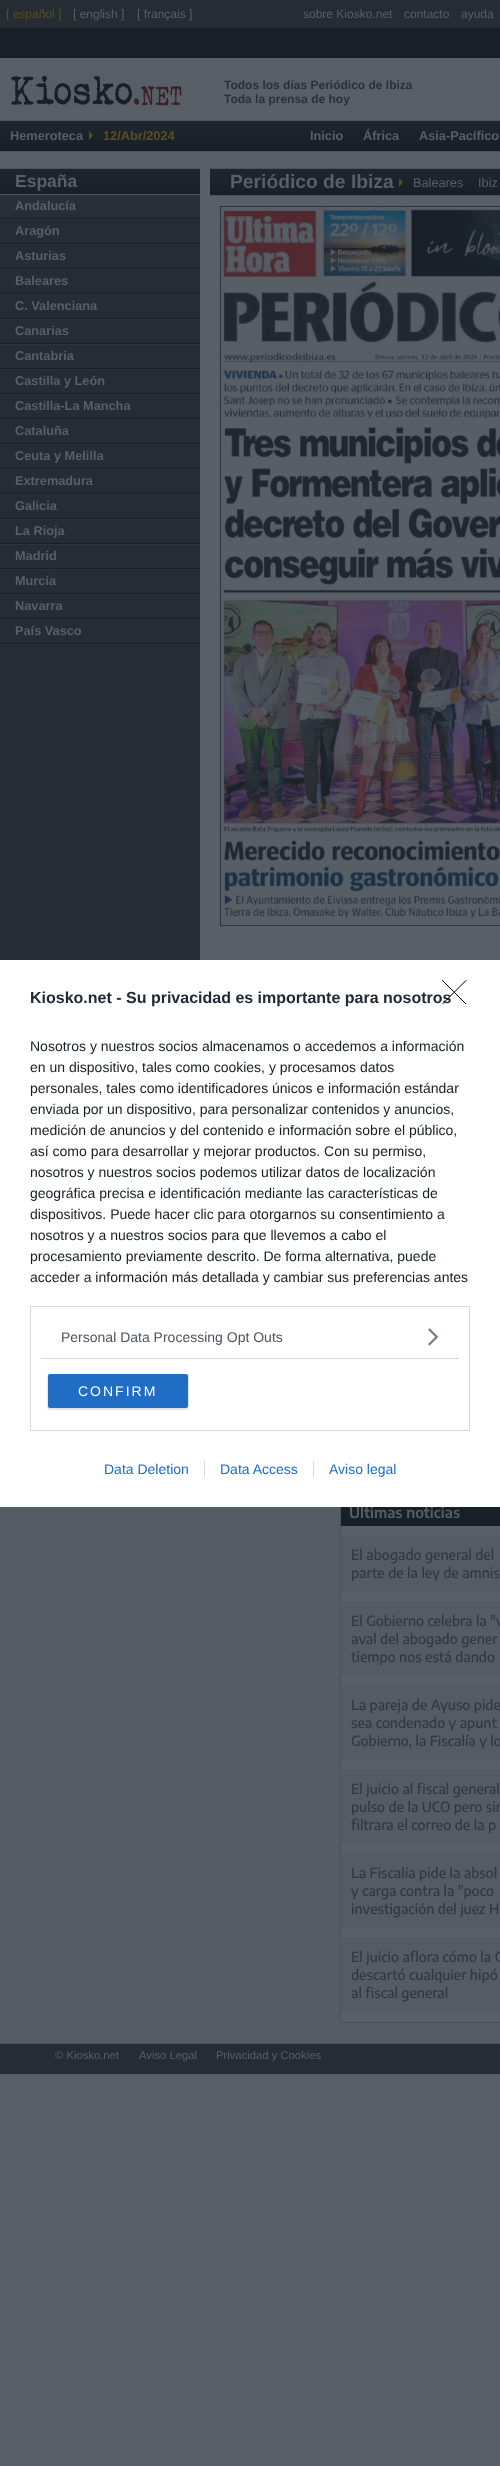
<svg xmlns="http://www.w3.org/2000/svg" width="500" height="2466">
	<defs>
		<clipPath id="clip1"><rect x="442" y="980" width="25" height="24" /></clipPath>
	</defs>
	<rect width="100%" height="100%" fill="#595F67" />
	<rect x="0" y="0" width="500" height="28" fill="#262C34" />
	<text x="6" y="18" font-family="Liberation Sans" font-size="12" fill="#584F27">[ español ]</text>
	<g font-family="Liberation Sans" font-size="12" fill="#595F67">
		<text x="73" y="18">[ english ]</text>
		<text x="137" y="18">[ français ]</text>
		<text x="303" y="18">sobre Kiosko.net</text>
		<text x="404" y="18">contacto</text>
		<text x="461" y="18">ayuda</text>
	</g>
	<rect x="0" y="28" width="500" height="30" fill="#191F27" />
	<image x="9" y="74" width="175" height="34" href="assets/img1.png" />
	<g font-family="Liberation Sans" font-size="12" font-weight="700" fill="#2A3038">
		<text x="224" y="89">Todos los días Periódico de Ibiza</text>
		<text x="224" y="103">Toda la prensa de hoy</text>
	</g>
	<rect x="0" y="144" width="500" height="7" fill="#191F27" />
	<image x="0" y="121" width="500" height="23" href="assets/img2.png" />
	<rect x="0" y="120" width="500" height="1" fill="#4C525A" />
	<rect x="0" y="151" width="500" height="1" fill="#4C525A" />
	<image x="89" y="131" width="4" height="9" href="assets/img3.png" />
	<text x="10" y="140" font-family="Liberation Sans" font-size="12.75" font-weight="700" fill="#595F67">Hemeroteca</text>
	<text x="103" y="140" font-family="Liberation Sans" font-size="12.75" font-weight="700" fill="#584F27">12/Abr/2024</text>
	<g font-family="Liberation Sans" font-size="12.75" font-weight="700" fill="#595F67">
		<text x="310" y="140">Inicio</text>
		<text x="363" y="140">África</text>
		<text x="419" y="140">Asia-Pacífico</text>
	</g>
	<rect x="0" y="220" width="200" height="740" fill="#262C34" />
	<rect x="0" y="2043" width="500" height="1" fill="#4C525A" />
	<rect x="0" y="192" width="200" height="2" fill="#191F27" />
	<image x="0" y="169" width="200" height="23" href="assets/img4.png" />
	<rect x="0" y="168" width="200" height="1" fill="#4C525A" />
	<rect x="0" y="194" width="200" height="1" fill="#4C525A" />
	<text x="15" y="187" font-family="Liberation Sans" font-size="17.5" font-weight="700" fill="#595F67">España</text>
	<image x="0" y="195" width="200" height="23" href="assets/img5.png" />
	<image x="0" y="218" width="200" height="2" href="assets/img6.png" />
	<text x="15" y="210" font-family="Liberation Sans" font-size="12.75" font-weight="700" fill="#595F67">Andalucía</text>
	<image x="0" y="243" width="200" height="2" href="assets/img6.png" />
	<text x="15" y="235" font-family="Liberation Sans" font-size="12.75" font-weight="700" fill="#595F67">Aragón</text>
	<image x="0" y="268" width="200" height="2" href="assets/img6.png" />
	<text x="15" y="260" font-family="Liberation Sans" font-size="12.75" font-weight="700" fill="#595F67">Asturias</text>
	<image x="0" y="293" width="200" height="2" href="assets/img6.png" />
	<text x="15" y="285" font-family="Liberation Sans" font-size="12.75" font-weight="700" fill="#595F67">Baleares</text>
	<image x="0" y="318" width="200" height="2" href="assets/img6.png" />
	<text x="15" y="310" font-family="Liberation Sans" font-size="12.75" font-weight="700" fill="#595F67">C. Valenciana</text>
	<image x="0" y="343" width="200" height="2" href="assets/img6.png" />
	<text x="15" y="335" font-family="Liberation Sans" font-size="12.75" font-weight="700" fill="#595F67">Canarias</text>
	<image x="0" y="368" width="200" height="2" href="assets/img6.png" />
	<text x="15" y="360" font-family="Liberation Sans" font-size="12.75" font-weight="700" fill="#595F67">Cantabria</text>
	<image x="0" y="393" width="200" height="2" href="assets/img6.png" />
	<text x="15" y="385" font-family="Liberation Sans" font-size="12.75" font-weight="700" fill="#595F67">Castilla y León</text>
	<image x="0" y="418" width="200" height="2" href="assets/img6.png" />
	<text x="15" y="410" font-family="Liberation Sans" font-size="12.75" font-weight="700" fill="#595F67">Castilla-La Mancha</text>
	<image x="0" y="443" width="200" height="2" href="assets/img6.png" />
	<text x="15" y="435" font-family="Liberation Sans" font-size="12.75" font-weight="700" fill="#595F67">Cataluña</text>
	<image x="0" y="468" width="200" height="2" href="assets/img6.png" />
	<text x="15" y="460" font-family="Liberation Sans" font-size="12.75" font-weight="700" fill="#595F67">Ceuta y Melilla</text>
	<image x="0" y="493" width="200" height="2" href="assets/img6.png" />
	<text x="15" y="485" font-family="Liberation Sans" font-size="12.75" font-weight="700" fill="#595F67">Extremadura</text>
	<image x="0" y="518" width="200" height="2" href="assets/img6.png" />
	<text x="15" y="510" font-family="Liberation Sans" font-size="12.75" font-weight="700" fill="#595F67">Galicia</text>
	<image x="0" y="543" width="200" height="2" href="assets/img6.png" />
	<text x="15" y="535" font-family="Liberation Sans" font-size="12.75" font-weight="700" fill="#595F67">La Rioja</text>
	<image x="0" y="568" width="200" height="2" href="assets/img6.png" />
	<text x="15" y="560" font-family="Liberation Sans" font-size="12.75" font-weight="700" fill="#595F67">Madrid</text>
	<image x="0" y="593" width="200" height="2" href="assets/img6.png" />
	<text x="15" y="585" font-family="Liberation Sans" font-size="12.75" font-weight="700" fill="#595F67">Murcia</text>
	<image x="0" y="618" width="200" height="2" href="assets/img6.png" />
	<text x="15" y="610" font-family="Liberation Sans" font-size="12.75" font-weight="700" fill="#595F67">Navarra</text>
	<image x="0" y="643" width="200" height="2" href="assets/img6.png" />
	<text x="15" y="635" font-family="Liberation Sans" font-size="12.75" font-weight="700" fill="#595F67">País Vasco</text>
	<rect x="210" y="192" width="290" height="3" fill="#191F27" />
	<image x="210" y="169" width="290" height="23" href="assets/img7.png" />
	<rect x="210" y="168" width="290" height="1" fill="#4C525A" />
	<rect x="210" y="195" width="290" height="1" fill="#4C525A" />
	<image x="399" y="178" width="4" height="9" href="assets/img8.png" />
	<text x="230" y="188" font-family="Liberation Sans" font-size="19.25" font-weight="700" fill="#595F67">Periódico de Ibiza</text>
	<g font-family="Liberation Sans" font-size="12.75" fill="#595F67">
		<text x="413" y="187">Baleares</text>
		<text x="478" y="187">Ibiz</text>
	</g>
	<image x="220" y="206" width="280" height="720" href="assets/img9.png" />
	<rect x="0" y="1507" width="500" height="536" fill="#565C64" />
	<rect x="341" y="1526" width="159" height="496" fill="#595F67" />
	<rect x="340.5" y="1500.5" width="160" height="522" fill="none" stroke="#4C525A" />
	<rect x="341" y="1507" width="159" height="19" fill="#191F27" />
	<text x="349" y="1518" font-family="Encode Sans" font-size="15" font-weight="600" fill="#595F67">Últimas noticias</text>
	<rect x="341" y="1536" width="159" height="56" fill="#555B63" />
	<g font-family="Encode Sans" font-size="14" font-weight="500" fill="#323841">
		<text x="351" y="1560">El abogado general del</text>
		<text x="351" y="1578">parte de la ley de amnis</text>
	</g>
	<rect x="341" y="1602" width="159" height="74" fill="#555B63" />
	<g font-family="Encode Sans" font-size="14" font-weight="500" fill="#323841">
		<text x="351" y="1626">El Gobierno celebra la "v</text>
		<text x="351" y="1644">aval del abogado gener</text>
		<text x="351" y="1662">tiempo nos está dando</text>
	</g>
	<rect x="341" y="1686" width="159" height="74" fill="#555B63" />
	<g font-family="Encode Sans" font-size="14" font-weight="500" fill="#323841">
		<text x="351" y="1710">La pareja de Ayuso pide</text>
		<text x="351" y="1728">sea condenado y apunt</text>
		<text x="351" y="1746">Gobierno, la Fiscalía y lo</text>
	</g>
	<rect x="341" y="1770" width="159" height="74" fill="#555B63" />
	<g font-family="Encode Sans" font-size="14" font-weight="500" fill="#323841">
		<text x="351" y="1794">El juicio al fiscal general</text>
		<text x="351" y="1812">pulso de la UCO pero sin</text>
		<text x="351" y="1830">filtrara el correo de la p</text>
	</g>
	<rect x="341" y="1854" width="159" height="74" fill="#555B63" />
	<g font-family="Encode Sans" font-size="14" font-weight="500" fill="#323841">
		<text x="351" y="1878">La Fiscalía pide la absol</text>
		<text x="351" y="1896">y carga contra la "poco</text>
		<text x="351" y="1914">investigación del juez H</text>
	</g>
	<rect x="341" y="1938" width="159" height="74" fill="#555B63" />
	<g font-family="Encode Sans" font-size="14" font-weight="500" fill="#323841">
		<text x="351" y="1962">El juicio aflora cómo la G</text>
		<text x="351" y="1980">descartó cualquier hipó</text>
		<text x="351" y="1998">al fiscal general</text>
	</g>
	<rect x="0" y="960" width="500" height="547" fill="#FFFFFF" />
	<text x="30" y="1003" font-family="Liberation Sans" font-size="16" font-weight="700" fill="#212934">Kiosko.net - Su privacidad es importante para nosotros</text>
	<g clip-path="url(#clip1)">
		<path d="M442.5 980.5L466 1004M466 980.5L442.5 1004" fill="none" stroke="#000000" stroke-linecap="round" stroke-linejoin="round" />
	</g>
	<g font-family="Liberation Sans" font-size="14" fill="#141E23">
		<text x="30" y="1051">Nosotros y nuestros socios almacenamos o accedemos a información</text>
		<text x="30" y="1072">en un dispositivo, tales como cookies, y procesamos datos</text>
		<text x="30" y="1093">personales, tales como identificadores únicos e información estándar</text>
		<text x="30" y="1114">enviada por un dispositivo, para personalizar contenidos y anuncios,</text>
		<text x="30" y="1135">medición de anuncios y del contenido e información sobre el público,</text>
		<text x="30" y="1156">así como para desarrollar y mejorar productos. Con su permiso,</text>
		<text x="30" y="1177">nosotros y nuestros socios podemos utilizar datos de localización</text>
		<text x="30" y="1198">geográfica precisa e identificación mediante las características de</text>
		<text x="30" y="1219">dispositivos. Puede hacer clic para otorgarnos su consentimiento a</text>
		<text x="30" y="1240">nosotros y a nuestros socios para que llevemos a cabo el</text>
		<text x="30" y="1261">procesamiento previamente descrito. De forma alternativa, puede</text>
		<text x="30" y="1282">acceder a información más detallada y cambiar sus preferencias antes</text>
	</g>
	<rect x="30.5" y="1306.5" width="439" height="124" fill="none" stroke="#D8D8D8" />
	<rect x="41" y="1358" width="418" height="1" fill="#D8D8D8" />
	<text x="61" y="1342" font-family="Liberation Sans" font-size="14" fill="#4D545D">Personal Data Processing Opt Outs</text>
	<image x="428" y="1328" width="10" height="18" href="assets/img10.png" />
	<rect x="47" y="1374" width="142" height="36" rx="3" fill="#000000" fill-opacity="0.1" filter="blur(0.5px)" />
	<rect x="48" y="1374" width="140" height="34" rx="2" fill="#206DC5" />
	<text x="78" y="1396" font-family="Liberation Sans" font-size="14" letter-spacing="2" fill="#FFFFFF">CONFIRM</text>
	<g font-family="Liberation Sans" font-size="14" fill="#206DC5">
		<text x="104" y="1474">Data Deletion</text>
		<text x="220" y="1474">Data Access</text>
	</g>
	<rect x="204" y="1461" width="1" height="16" fill="#D8D8D8" />
	<text x="329" y="1474" font-family="Liberation Sans" font-size="14" fill="#206DC5">Aviso legal</text>
	<rect x="313" y="1461" width="1" height="16" fill="#D8D8D8" />
	<rect x="0" y="2044" width="500" height="30" fill="#262C34" />
	<g font-family="Liberation Sans" font-size="11.25" fill="#595F67">
		<text x="55" y="2059">© Kiosko.net</text>
		<text x="139" y="2059">Aviso Legal</text>
		<text x="216" y="2059">Privacidad y Cookies</text>
	</g>
</svg>
